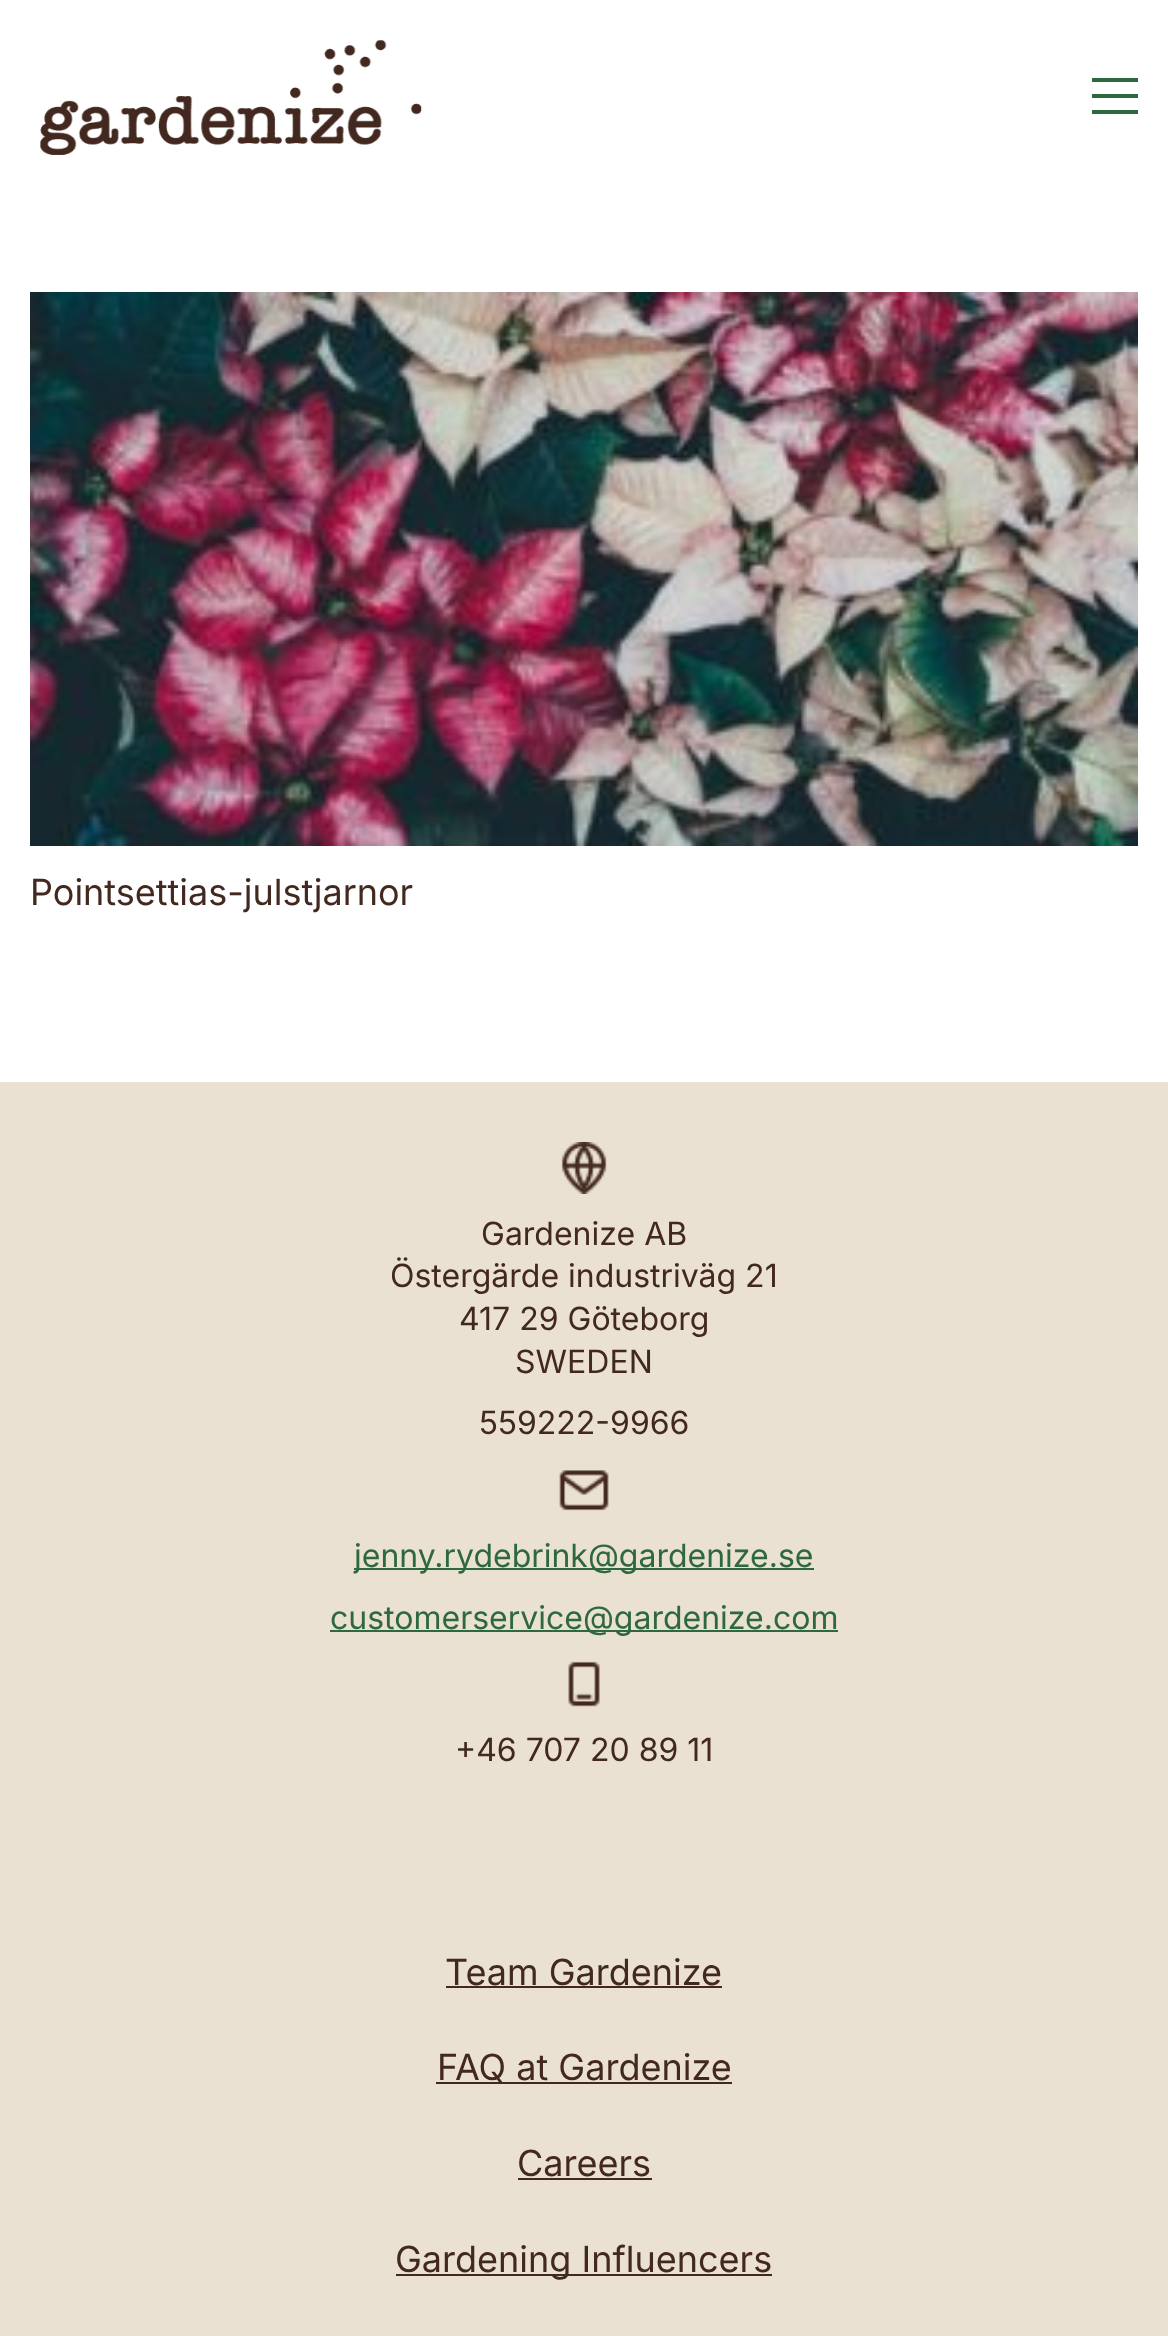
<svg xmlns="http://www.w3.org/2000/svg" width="1168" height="2336">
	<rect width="100%" height="100%" fill="#FFFFFF" />
	<image x="40" y="40" width="382" height="115" href="assets/img1.png" />
	<rect x="1092" y="78" width="46" height="4" fill="#2E683E" />
	<rect x="1092" y="94" width="46" height="4" fill="#2E683E" />
	<rect x="1092" y="110" width="46" height="4" fill="#2E683E" />
	<image x="30" y="292" width="1108" height="554" href="assets/img2.png" />
	<text x="30" y="905" font-family="Inter" font-size="36" fill="#42281F">Pointsettias-julstjarnor</text>
	<rect x="0" y="1082" width="1168" height="1254" fill="#EAE1D3" />
	<image x="561" y="1142" width="46" height="52" href="assets/img3.png" />
	<g font-family="Inter" font-size="32" fill="#42281F">
		<text x="481" y="1245">Gardenize AB</text>
		<text x="390" y="1287">Östergärde industriväg 21</text>
		<text x="459" y="1330">417 29 Göteborg</text>
		<text x="515" y="1373">SWEDEN</text>
		<text x="479" y="1434">559222-9966</text>
	</g>
	<image x="559" y="1470" width="50" height="41" href="assets/img4.png" />
	<rect x="354" y="1568" width="460" height="2" fill="#2E683E" />
	<text x="354" y="1567" font-family="Inter" font-size="32" fill="#2E683E">jenny.rydebrink@gardenize.se</text>
	<rect x="330" y="1630" width="508" height="2" fill="#2E683E" />
	<text x="330" y="1629" font-family="Inter" font-size="32" fill="#2E683E">customerservice@gardenize.com</text>
	<image x="568" y="1661" width="32" height="46" href="assets/img5.png" />
	<text x="455" y="1761" font-family="Inter" font-size="32" fill="#42281F">+46 707 20 89 11</text>
	<text x="445" y="1985" font-family="Inter" font-size="36" fill="#42281F">Team Gardenize</text>
	<rect x="446" y="1986" width="276" height="2" fill="#42281F" />
	<rect x="436" y="2082" width="296" height="2" fill="#42281F" />
	<g font-family="Inter" font-size="36" fill="#42281F">
		<text x="437" y="2080">FAQ at Gardenize</text>
		<text x="517" y="2176">Careers</text>
	</g>
	<rect x="518" y="2178" width="134" height="2" fill="#42281F" />
	<rect x="396" y="2274" width="376" height="2" fill="#42281F" />
	<text x="395" y="2272" font-family="Inter" font-size="36" fill="#42281F">Gardening Influencers</text>
</svg>
